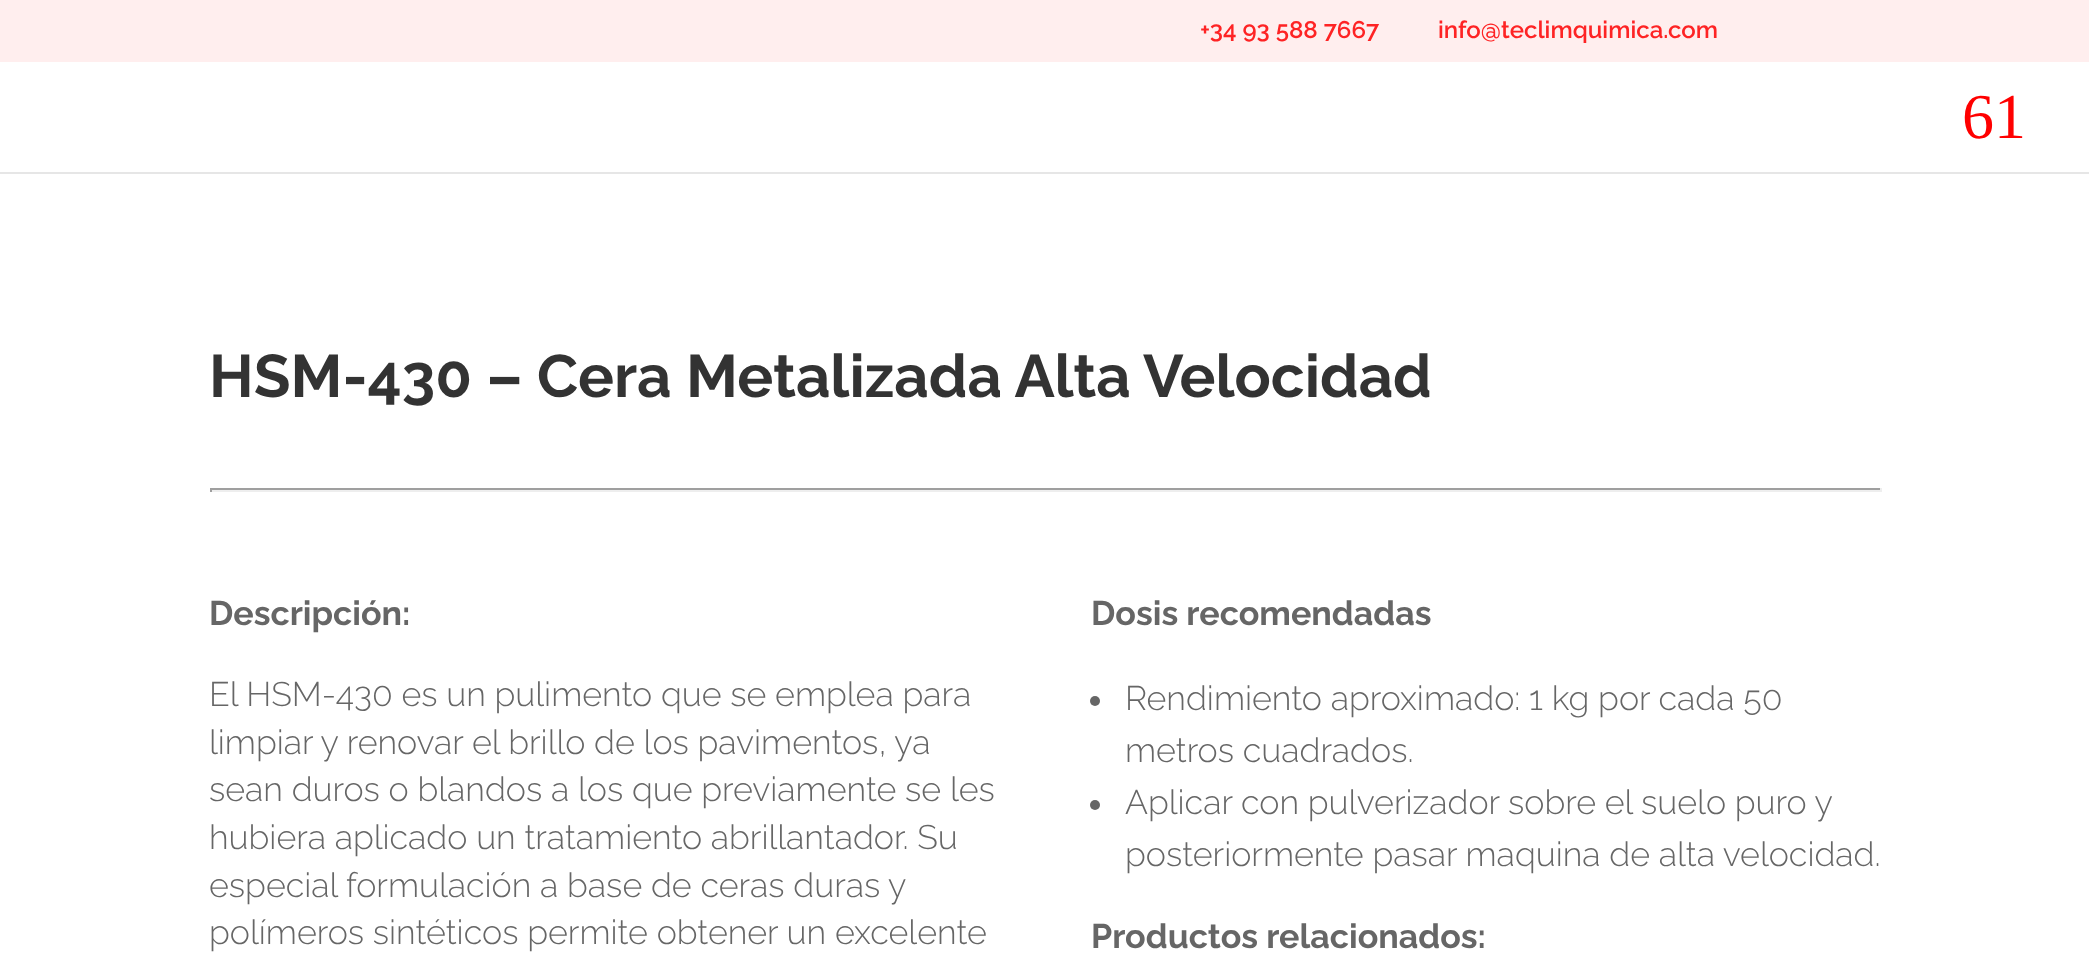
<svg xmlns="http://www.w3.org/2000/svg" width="2089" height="967">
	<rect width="100%" height="100%" fill="#FFFFFF" />
	<rect x="0" y="0" width="2089" height="62" fill="#FFEEEE" />
	<g font-family="Raleway" font-size="24" font-weight="600" fill="#FE2324">
		<text x="1200" y="38">+34 93 588 7667</text>
		<text x="1438" y="38">info@teclimquimica.com</text>
	</g>
	<rect x="0" y="172" width="2089" height="2" fill="#E6E6E6" />
	<text x="1962" y="138" font-family="Liberation Serif" font-size="64" fill="#FF0000">61</text>
	<text x="209" y="397" font-family="Raleway" font-size="60" font-weight="700" fill="#333333">HSM-430 – Cera Metalizada Alta Velocidad</text>
	<rect x="210" y="488" width="1672" height="2" fill="#9F9F9F" />
	<rect x="1880" y="488" width="2" height="4" fill="#EEEEEE" />
	<rect x="210" y="490" width="1672" height="2" fill="#EEEEEE" />
	<rect x="210" y="488" width="2" height="4" fill="#9F9F9F" />
	<text x="209" y="625" font-family="Raleway" font-size="34" font-weight="700" fill="#666666">Descripción:</text>
	<g font-family="Raleway" font-size="34" font-weight="300" fill="#666666">
		<text x="209" y="706">El HSM-430 es un pulimento que se emplea para</text>
		<text x="209" y="754">limpiar y renovar el brillo de los pavimentos, ya</text>
		<text x="209" y="801">sean duros o blandos a los que previamente se les</text>
		<text x="209" y="849">hubiera aplicado un tratamiento abrillantador. Su</text>
		<text x="209" y="897">especial formulación a base de ceras duras y</text>
		<text x="209" y="944">polímeros sintéticos permite obtener un excelente</text>
	</g>
	<text x="1091" y="625" font-family="Raleway" font-size="34" font-weight="700" fill="#666666">Dosis recomendadas</text>
	<circle cx="1095" cy="701" r="5" fill="#666666" />
	<g font-family="Raleway" font-size="34" font-weight="300" fill="#666666">
		<text x="1125" y="710">Rendimiento aproximado: 1 kg por cada 50</text>
		<text x="1125" y="762">metros cuadrados.</text>
	</g>
	<circle cx="1095" cy="805" r="5" fill="#666666" />
	<g font-family="Raleway" font-size="34" font-weight="300" fill="#666666">
		<text x="1125" y="814">Aplicar con pulverizador sobre el suelo puro y</text>
		<text x="1125" y="866">posteriormente pasar maquina de alta velocidad.</text>
	</g>
	<text x="1091" y="948" font-family="Raleway" font-size="34" font-weight="700" fill="#666666">Productos relacionados:</text>
</svg>
